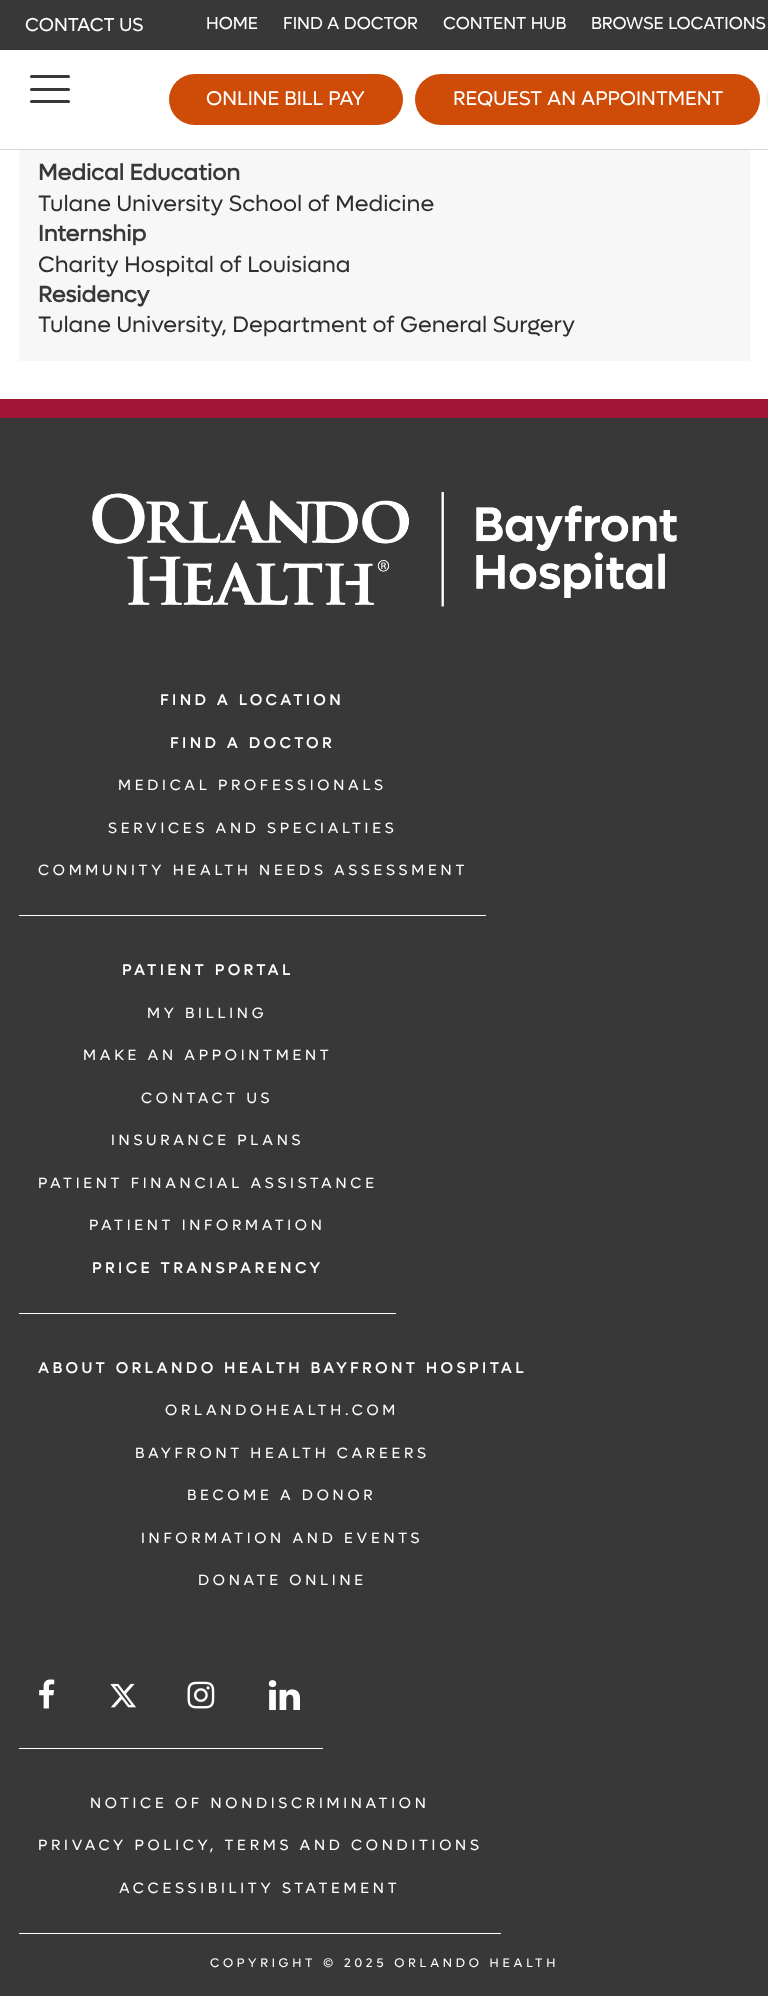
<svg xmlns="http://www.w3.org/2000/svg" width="768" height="1996">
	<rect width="100%" height="100%" fill="#FFFFFF" />
	<rect x="0" y="0" width="768" height="50" fill="#393839" />
	<text x="25" y="31" font-family="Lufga" font-size="18.75" fill="#FFFFFF">CONTACT US</text>
	<g font-family="Lufga" font-size="17.4" fill="#FFFFFF">
		<text x="206" y="29">HOME</text>
		<text x="283" y="29">FIND A DOCTOR</text>
		<text x="443" y="29">CONTENT HUB</text>
		<text x="591" y="29">BROWSE LOCATIONS</text>
	</g>
	<rect x="0" y="149" width="768" height="1" fill="#D9D9D9" />
	<rect x="30" y="88" width="40" height="3" rx="1.5" fill="#393839" />
	<rect x="30" y="75" width="40" height="3" rx="1.5" fill="#393839" />
	<rect x="30" y="100" width="40" height="3" rx="1.5" fill="#393839" />
	<rect x="169" y="74" width="234" height="51" rx="25.5" fill="#CF4B08" />
	<text x="206" y="105" font-family="Lufga" font-size="20" fill="#FFFFFF">ONLINE BILL PAY</text>
	<rect x="415" y="74" width="345" height="51" rx="25.5" fill="#CF4B08" />
	<text x="453" y="105" font-family="Lufga" font-size="20" fill="#FFFFFF">REQUEST AN APPOINTMENT</text>
	<path d="M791 75H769V125H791C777 125 766 114 766 100C766 86 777 75 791 75Z" fill="#F2F2F2" />
	<rect x="19" y="150" width="731" height="211" fill="#F7F7F7" />
	<text x="38" y="180" font-family="Lufga" font-size="22.5" font-weight="700" fill="#393839">Medical Education</text>
	<text x="38" y="211" font-family="Lufga" font-size="22.5" fill="#2D2D2D">Tulane University School of Medicine</text>
	<text x="38" y="241" font-family="Lufga" font-size="22.5" font-weight="700" fill="#393839">Internship</text>
	<text x="38" y="272" font-family="Lufga" font-size="22.5" fill="#2D2D2D">Charity Hospital of Louisiana</text>
	<text x="38" y="302" font-family="Lufga" font-size="22.5" font-weight="700" fill="#393839">Residency</text>
	<text x="38" y="332" font-family="Lufga" font-size="22.5" fill="#2D2D2D">Tulane University, Department of General Surgery</text>
	<rect x="0" y="418" width="768" height="1578" fill="#393839" />
	<rect x="0" y="399" width="768" height="19" fill="#A01534" />
	<image x="92" y="492" width="585" height="115" href="assets/img1.png" />
	<rect x="19" y="915" width="467" height="1" fill="#FFFFFF" />
	<g font-family="Lufga" font-size="15" font-weight="700" letter-spacing="3.75" fill="#FFFFFF">
		<text x="160" y="705">FIND A LOCATION</text>
		<text x="170" y="748">FIND A DOCTOR</text>
	</g>
	<g font-family="Lufga" font-size="15" letter-spacing="3.75" fill="#FFFFFF">
		<text x="118" y="790">MEDICAL PROFESSIONALS</text>
		<text x="108" y="833">SERVICES AND SPECIALTIES</text>
		<text x="38" y="875">COMMUNITY HEALTH NEEDS ASSESSMENT</text>
	</g>
	<rect x="19" y="1313" width="377" height="1" fill="#FFFFFF" />
	<text x="122" y="975" font-family="Lufga" font-size="15" font-weight="700" letter-spacing="3.75" fill="#FFFFFF">PATIENT PORTAL</text>
	<g font-family="Lufga" font-size="15" letter-spacing="3.75" fill="#FFFFFF">
		<text x="147" y="1018">MY BILLING</text>
		<text x="83" y="1060">MAKE AN APPOINTMENT</text>
		<text x="141" y="1103">CONTACT US</text>
		<text x="111" y="1145">INSURANCE PLANS</text>
		<text x="38" y="1188">PATIENT FINANCIAL ASSISTANCE</text>
		<text x="89" y="1230">PATIENT INFORMATION</text>
	</g>
	<g font-family="Lufga" font-size="15" font-weight="700" letter-spacing="3.75" fill="#FFFFFF">
		<text x="92" y="1273">PRICE TRANSPARENCY</text>
		<text x="38" y="1373">ABOUT ORLANDO HEALTH BAYFRONT HOSPITAL</text>
	</g>
	<g font-family="Lufga" font-size="15" letter-spacing="3.75" fill="#FFFFFF">
		<text x="165" y="1415">ORLANDOHEALTH.COM</text>
		<text x="135" y="1458">BAYFRONT HEALTH CAREERS</text>
		<text x="187" y="1500">BECOME A DONOR</text>
		<text x="141" y="1543">INFORMATION AND EVENTS</text>
		<text x="198" y="1585">DONATE ONLINE</text>
	</g>
	<rect x="19" y="1748" width="304" height="1" fill="#FFFFFF" />
	<image x="39" y="1679" width="16" height="30" href="assets/img2.png" />
	<image x="110" y="1683" width="26" height="25" href="assets/img3.png" />
	<image x="187" y="1681" width="28" height="28" href="assets/img4.png" />
	<image x="268" y="1680" width="32" height="30" href="assets/img5.png" />
	<rect x="19" y="1933" width="482" height="1" fill="#FFFFFF" />
	<g font-family="Lufga" font-size="15" letter-spacing="3.75" fill="#FFFFFF">
		<text x="90" y="1808">NOTICE OF NONDISCRIMINATION</text>
		<text x="38" y="1850">PRIVACY POLICY, TERMS AND CONDITIONS</text>
		<text x="119" y="1893">ACCESSIBILITY STATEMENT</text>
	</g>
	<text x="210" y="1967" font-family="Lufga" font-size="12.5" letter-spacing="3.75" fill="#FFFFFF">COPYRIGHT © 2025 ORLANDO HEALTH</text>
</svg>
